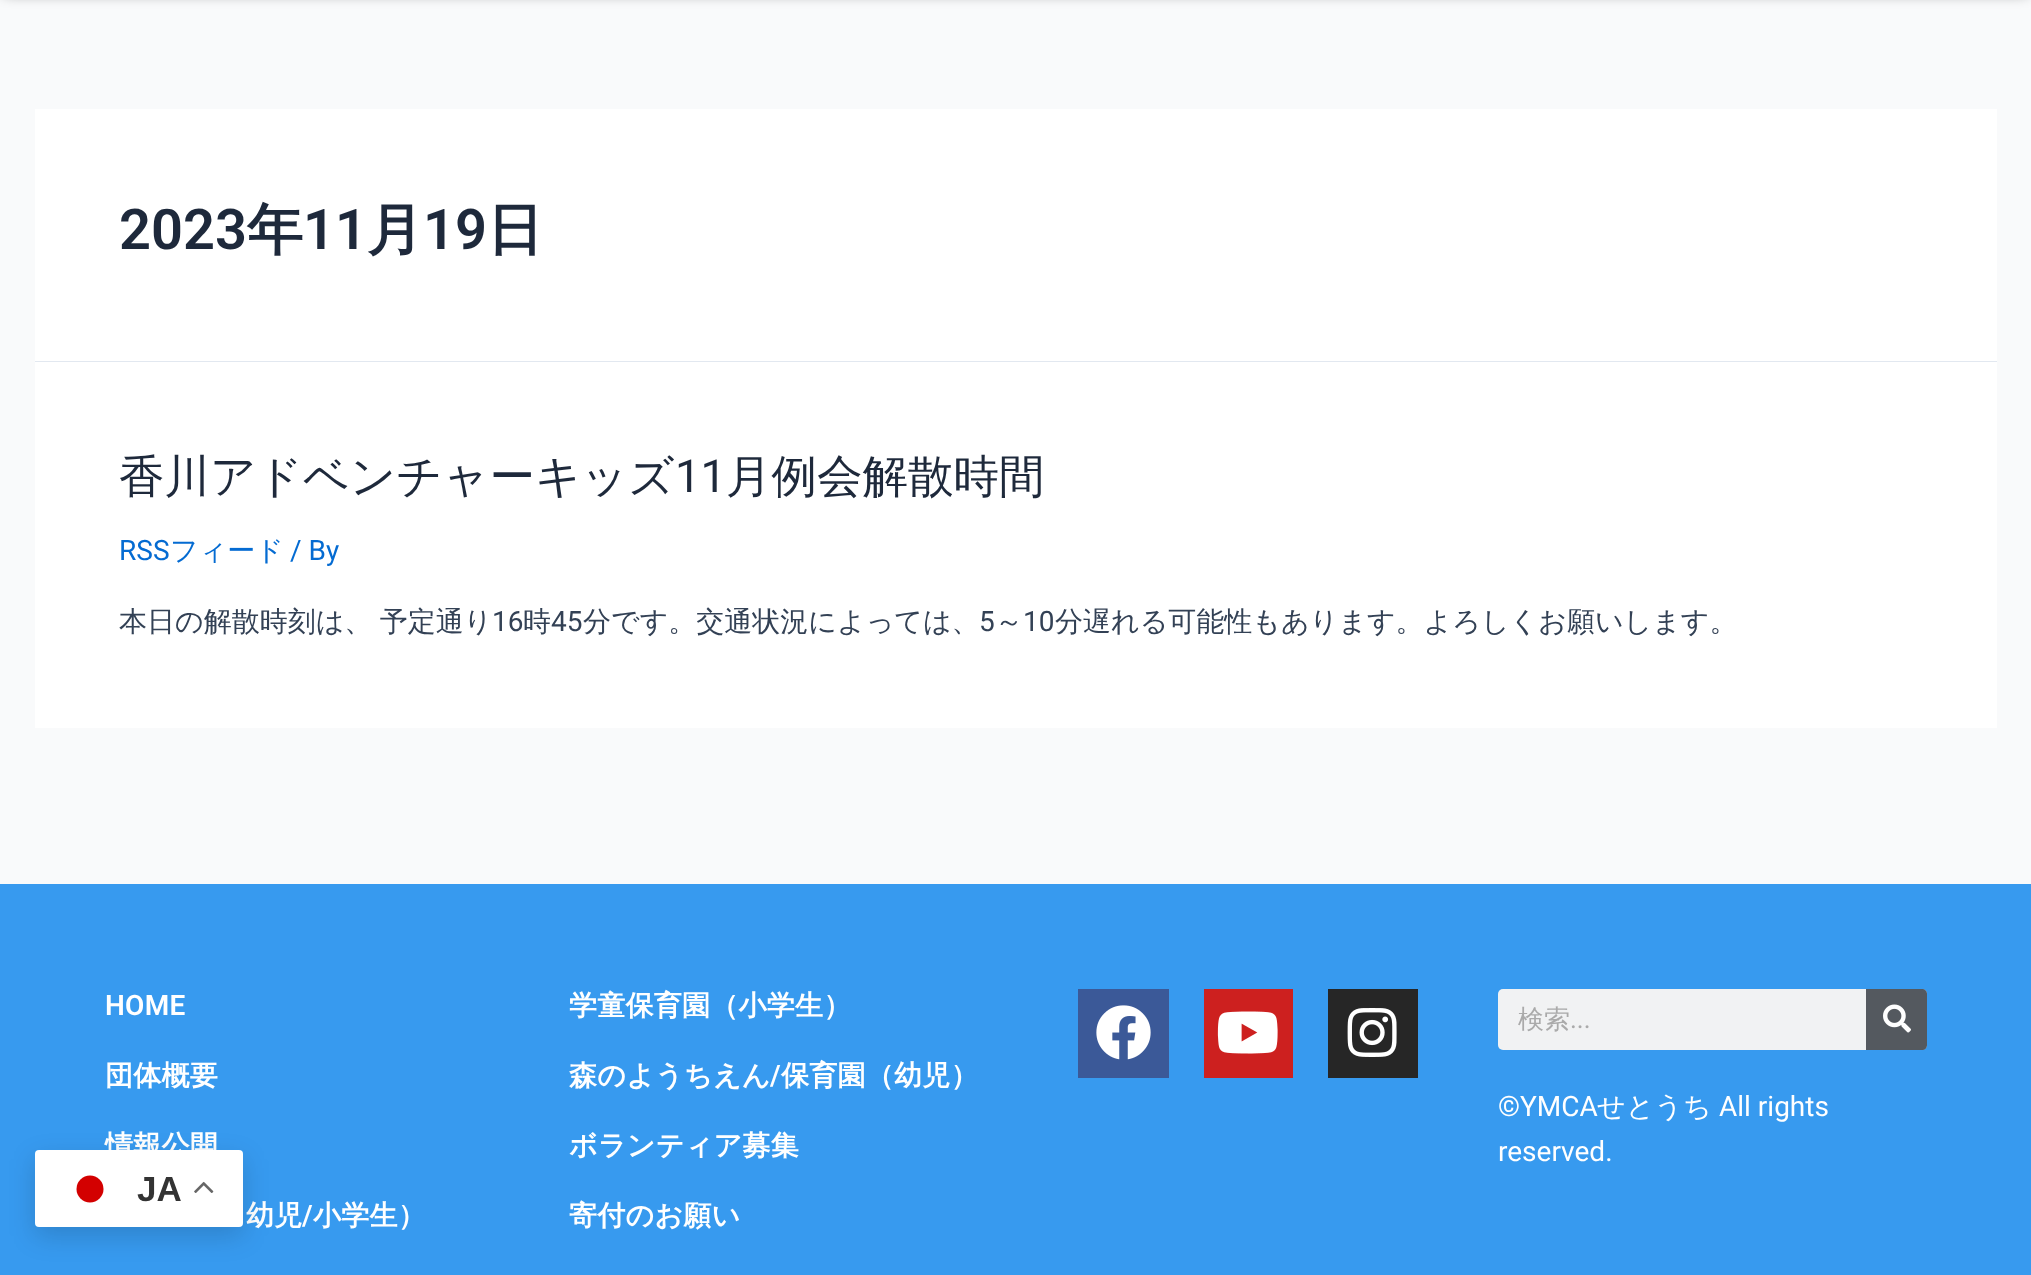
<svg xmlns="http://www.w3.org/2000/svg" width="2031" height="1275">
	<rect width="100%" height="100%" fill="#F9FAFB" />
	<rect x="4" y="-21" width="2024" height="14" fill="#000000" fill-opacity="0.5" filter="blur(7px)" />
	<rect x="35" y="109" width="1962" height="252" fill="#FFFFFF" />
	<rect x="35" y="361" width="1962" height="1" fill="#E2E8F0" />
	<text x="119" y="249" font-family="Roboto" font-size="56" font-weight="600" fill="#1E293B">2023</text>
	<text x="247" y="249" font-family="WenQuanYi Zen Hei" font-size="56" font-weight="700" fill="#1E293B">年</text>
	<text x="303" y="249" font-family="Roboto" font-size="56" font-weight="600" fill="#1E293B">11</text>
	<text x="367" y="249" font-family="WenQuanYi Zen Hei" font-size="56" font-weight="700" fill="#1E293B">月</text>
	<text x="423" y="249" font-family="Roboto" font-size="56" font-weight="600" fill="#1E293B">19</text>
	<text x="487" y="249" font-family="WenQuanYi Zen Hei" font-size="56" font-weight="700" fill="#1E293B">日</text>
	<rect x="35" y="362" width="1962" height="366" fill="#FFFFFF" />
	<text x="119" y="492" font-family="WenQuanYi Zen Hei" font-size="45.5" font-weight="500" fill="#1E293B">香川アドベンチャーキッズ</text>
	<text x="675" y="492" font-family="Roboto" font-size="45.5" fill="#1E293B">11</text>
	<text x="726" y="492" font-family="WenQuanYi Zen Hei" font-size="45.5" font-weight="500" fill="#1E293B">月例会解散時間</text>
	<text x="119" y="560" font-family="Roboto" font-size="28" fill="#046BD2">RSS</text>
	<text x="170" y="560" font-family="WenQuanYi Zen Hei" font-size="28" font-weight="500" fill="#046BD2">フィード</text>
	<text x="290" y="560" font-family="Roboto" font-size="28" fill="#046BD2">/ By</text>
	<text x="119" y="631" word-spacing="-1" font-family="WenQuanYi Zen Hei" font-size="28" font-weight="500" fill="#334155">本日の解散時刻は、 予定通り</text>
	<text x="492" y="631" font-family="Roboto" font-size="28" fill="#334155">16</text>
	<text x="523" y="631" font-family="WenQuanYi Zen Hei" font-size="28" font-weight="500" fill="#334155">時</text>
	<text x="551" y="631" font-family="Roboto" font-size="28" fill="#334155">45</text>
	<text x="583" y="631" font-family="WenQuanYi Zen Hei" font-size="28" font-weight="500" fill="#334155">分です。交通状況によっては、</text>
	<text x="979" y="631" font-family="Roboto" font-size="28" fill="#334155">5</text>
	<text x="995" y="631" font-family="WenQuanYi Zen Hei" font-size="28" font-weight="500" fill="#334155">～</text>
	<text x="1023" y="631" font-family="Roboto" font-size="28" fill="#334155">10</text>
	<text x="1055" y="631" font-family="WenQuanYi Zen Hei" font-size="28" font-weight="500" fill="#334155">分遅れる可能性もあります。よろしくお願いします。</text>
	<rect x="0" y="884" width="2031" height="391" fill="#379AEF" />
	<text x="105" y="1015" font-family="Roboto" font-size="28" font-weight="600" letter-spacing="0.25" fill="#FFFFFF">HOME</text>
	<g font-family="WenQuanYi Zen Hei" font-size="28" font-weight="700" letter-spacing="0.25" fill="#FFFFFF">
		<text x="105" y="1085">団体概要</text>
		<text x="105" y="1155">情報公開</text>
		<text x="246" y="1225">幼児</text>
	</g>
	<text x="302" y="1225" font-family="Roboto" font-size="28" font-weight="600" letter-spacing="0.25" fill="#FFFFFF">/</text>
	<g font-family="WenQuanYi Zen Hei" font-size="28" font-weight="700" letter-spacing="0.25" fill="#FFFFFF">
		<text x="313" y="1225">小学生）</text>
		<text x="569" y="1015">学童保育園（小学生）</text>
		<text x="569" y="1085">森のようちえん</text>
	</g>
	<text x="770" y="1085" font-family="Roboto" font-size="28" font-weight="600" letter-spacing="0.25" fill="#FFFFFF">/</text>
	<g font-family="WenQuanYi Zen Hei" font-size="28" font-weight="700" letter-spacing="0.25" fill="#FFFFFF">
		<text x="781" y="1085">保育園（幼児）</text>
		<text x="569" y="1155">ボランティア募集</text>
		<text x="569" y="1225">寄付のお願い</text>
	</g>
	<rect x="1078" y="989" width="91" height="89" fill="#3B5998" />
	<image x="1096" y="1005" width="55" height="55" href="assets/img1.png" />
	<rect x="1204" y="989" width="89" height="89" fill="#CD201F" />
	<image x="1217" y="1011" width="61" height="43" href="assets/img2.png" />
	<rect x="1328" y="989" width="90" height="89" fill="#262626" />
	<image x="1347" y="1008" width="50" height="49" href="assets/img3.png" />
	<rect x="1498" y="989" width="429" height="61" rx="5" fill="#F1F2F3" />
	<text x="1518" y="1028" font-family="WenQuanYi Zen Hei" font-size="26" font-weight="500" fill="#AAAAAA">検索</text>
	<text x="1570" y="1028" font-family="Roboto" font-size="26" fill="#AAAAAA">...</text>
	<path d="M1866 989H1922C1925 989 1927 991 1927 994V1045C1927 1048 1925 1050 1922 1050H1866Z" fill="#54595F" />
	<image x="1883" y="1004" width="28" height="29" href="assets/img4.png" />
	<text x="1498" y="1116" font-family="Roboto" font-size="28" fill="#FFFFFF">©YMCA</text>
	<text x="1597" y="1116" font-family="WenQuanYi Zen Hei" font-size="28" font-weight="500" fill="#FFFFFF">せとうち</text>
	<g font-family="Roboto" font-size="28" fill="#FFFFFF">
		<text x="1719" y="1116">All rights</text>
		<text x="1498" y="1161">reserved.</text>
	</g>
	<rect x="35" y="1159" width="208" height="77" rx="4" fill="#000000" fill-opacity="0.15" filter="blur(13px)" />
	<rect x="35" y="1150" width="208" height="77" rx="4" fill="#FFFFFF" />
	<circle cx="90" cy="1189" r="13.5" fill="#D30000" />
	<text x="137" y="1201" font-family="Liberation Sans" font-size="35" font-weight="700" fill="#333333">JA</text>
	<image x="194" y="1181" width="20" height="12" href="assets/img5.png" />
</svg>
